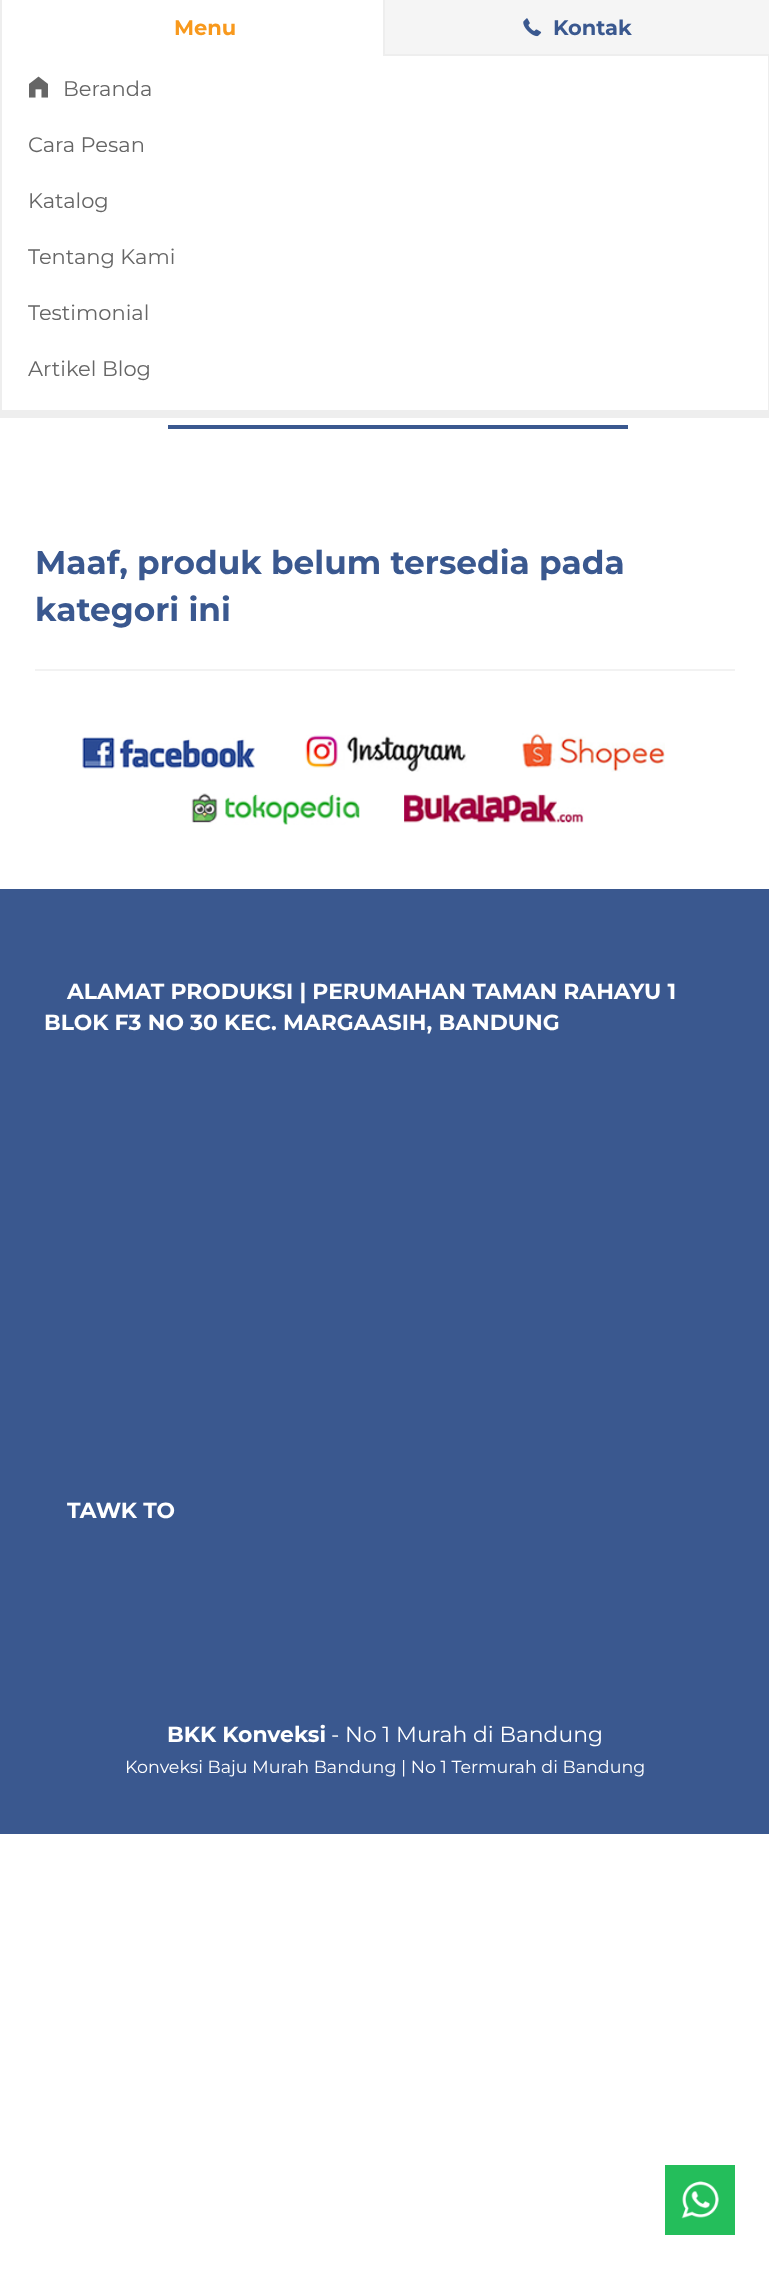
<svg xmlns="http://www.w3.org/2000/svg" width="769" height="2269">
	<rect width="100%" height="100%" fill="#FFFFFF" />
	<rect x="385" y="0" width="384" height="54" fill="#F5F5F5" />
	<rect x="385" y="54" width="384" height="2" fill="#EEEEEE" />
	<rect x="383" y="0" width="2" height="56" fill="#EEEEEE" />
	<rect x="0" y="0" width="2" height="56" fill="#EEEEEE" />
	<text x="174" y="35" font-family="Montserrat" font-size="21" font-weight="700" fill="#F8991D">Menu</text>
	<rect x="768" y="56" width="1" height="362" fill="#EEEEEE" />
	<rect x="0" y="410" width="769" height="8" fill="#EEEEEE" />
	<rect x="0" y="56" width="2" height="362" fill="#EEEEEE" />
	<image x="29" y="76" width="19" height="22" href="assets/img1.png" />
	<g font-family="Montserrat" font-size="21" fill="#666666">
		<text x="63" y="96">Beranda</text>
		<text x="28" y="152">Cara Pesan</text>
		<text x="28" y="208">Katalog</text>
		<text x="28" y="264">Tentang Kami</text>
		<text x="28" y="320">Testimonial</text>
		<text x="28" y="376">Artikel Blog</text>
	</g>
	<image x="523" y="18" width="19" height="19" href="assets/img2.png" />
	<text x="553" y="35" font-family="Montserrat" font-size="21" font-weight="700" fill="#3A588F">Kontak</text>
	<rect x="168" y="425" width="460" height="4" fill="#3A588F" />
	<g font-family="Montserrat" font-size="32.8" font-weight="700" fill="#3A588F">
		<text x="35" y="574">Maaf, produk belum tersedia pada</text>
		<text x="35" y="621">kategori ini</text>
	</g>
	<rect x="35" y="669" width="700" height="2" fill="#F2F2F2" />
	<image x="82" y="737" width="173" height="32" href="assets/img3.png" />
	<image x="305" y="735" width="162" height="37" href="assets/img4.png" />
	<image x="522" y="733" width="143" height="39" href="assets/img5.png" />
	<image x="191" y="793" width="169" height="32" href="assets/img6.png" />
	<image x="404" y="794" width="180" height="29" href="assets/img7.png" />
	<rect x="0" y="889" width="769" height="945" fill="#3A588F" />
	<g font-family="Montserrat" font-size="21.9" font-weight="700" fill="#FFFFFF">
		<text x="67" y="999">ALAMAT PRODUKSI | PERUMAHAN TAMAN RAHAYU 1</text>
		<text x="44" y="1030">BLOK F3 NO 30 KEC. MARGAASIH, BANDUNG</text>
		<text x="67" y="1518">TAWK TO</text>
		<text x="167" y="1742">BKK Konveksi</text>
	</g>
	<text x="331" y="1742" font-family="Montserrat" font-size="21.9" fill="#FFFFFF">- No 1 Murah di Bandung</text>
	<text x="125" y="1773" font-family="Montserrat" font-size="17.5" fill="#FFFFFF">Konveksi Baju Murah Bandung | No 1 Termurah di Bandung</text>
	<rect x="665" y="2165" width="70" height="70" fill="#24BE5B" />
	<image x="681" y="2181" width="38" height="38" href="assets/img8.png" />
</svg>
